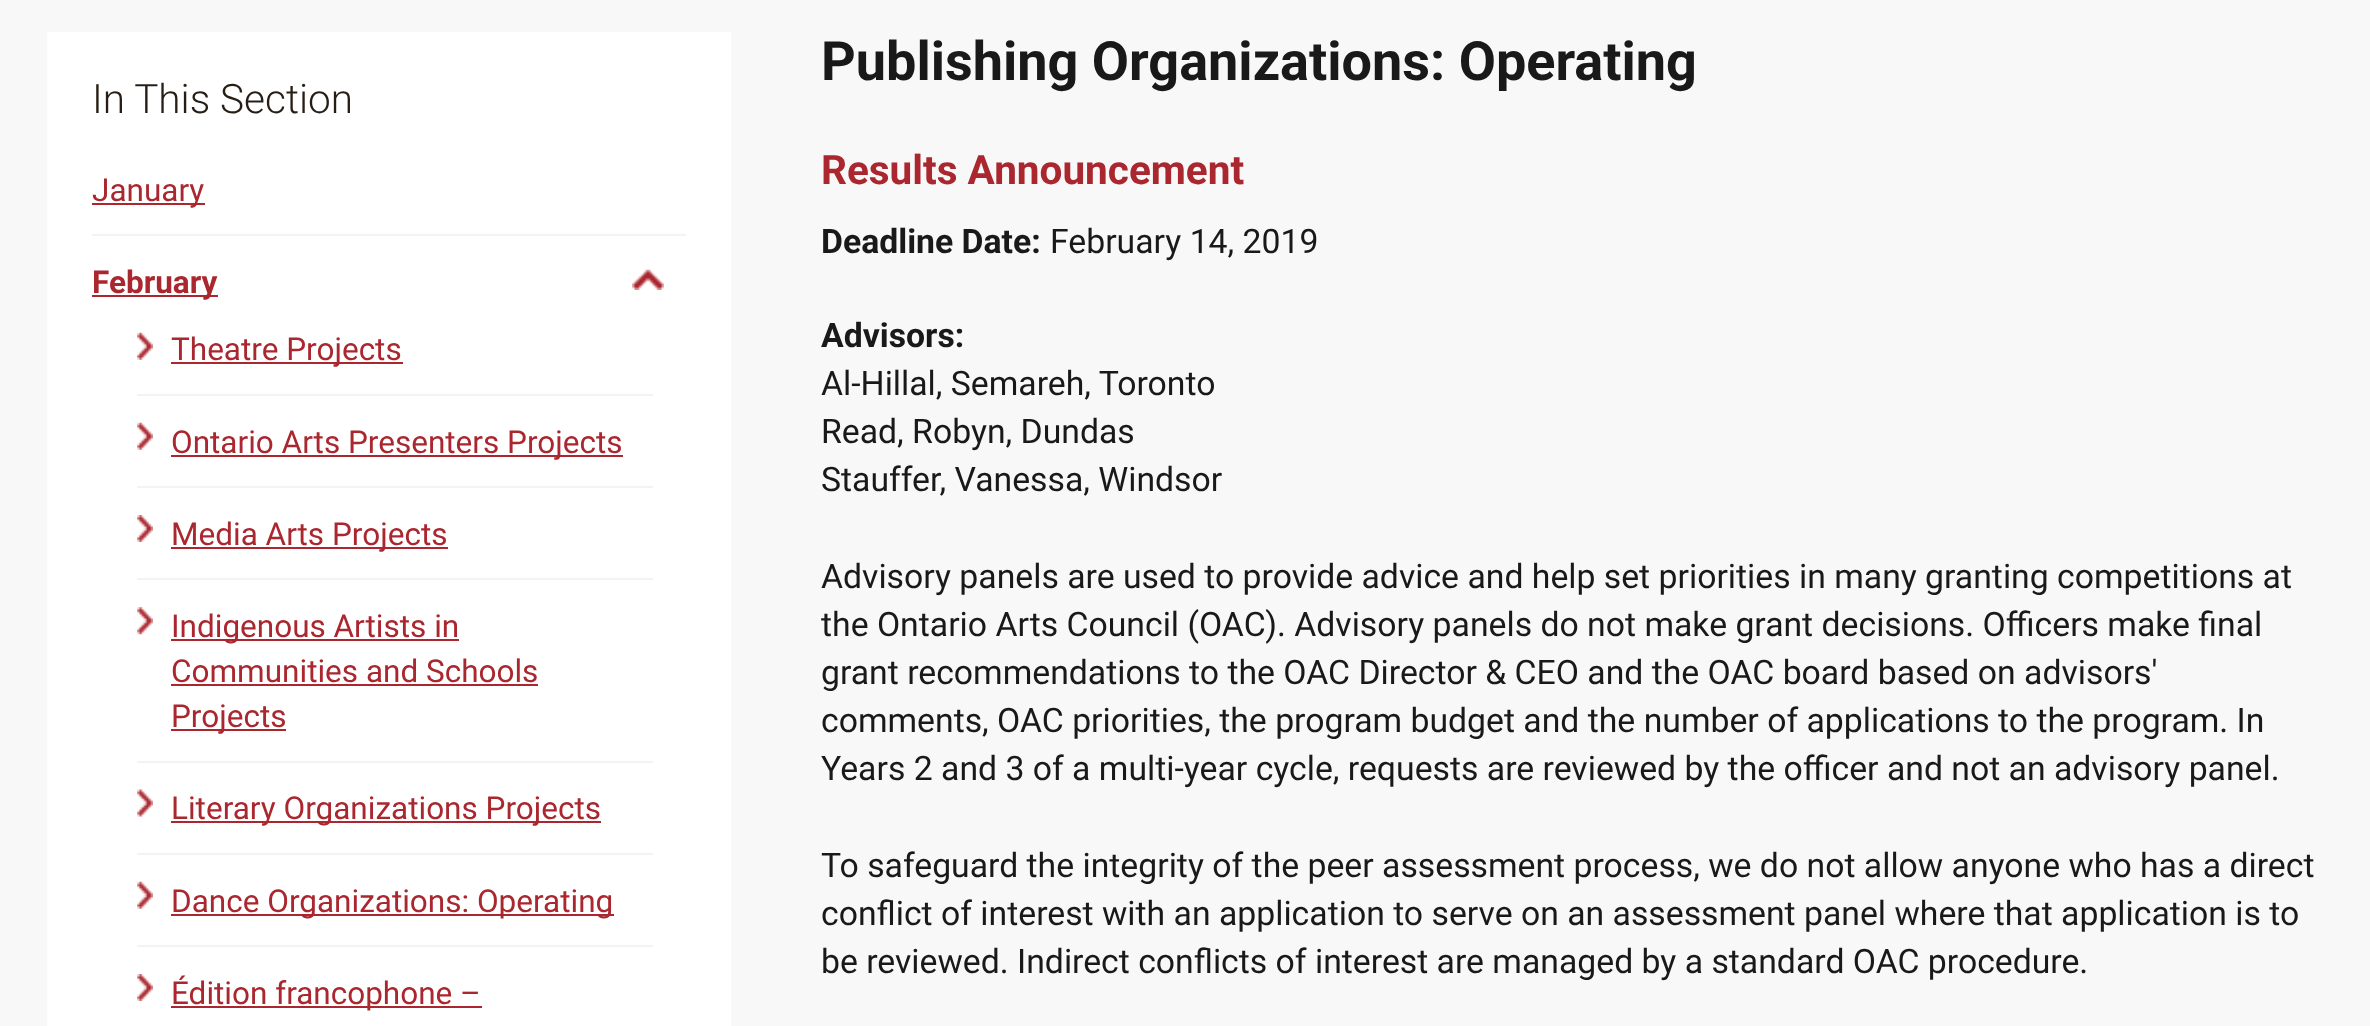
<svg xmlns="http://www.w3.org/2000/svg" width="2370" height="1026">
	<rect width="100%" height="100%" fill="#F8F8F8" />
	<rect x="47" y="32" width="684" height="994" fill="#FFFFFF" />
	<text x="92" y="113" font-family="Roboto" font-size="40.5" font-weight="300" fill="#261E14">In This Section</text>
	<rect x="92" y="203" width="113" height="2" fill="#AA272F" />
	<text x="92" y="201" font-family="Roboto" font-size="31.5" fill="#AA272F">January</text>
	<rect x="92" y="234" width="594" height="2" fill="#F3F3F3" />
	<rect x="92" y="295" width="126" height="2" fill="#AA272F" />
	<text x="92" y="293" font-family="Roboto" font-size="31.5" font-weight="700" fill="#AA272F">February</text>
	<image x="632" y="269" width="32" height="21" href="assets/img1.png" />
	<image x="137" y="332" width="16" height="28" href="assets/img2.png" />
	<rect x="171" y="362" width="232" height="2" fill="#AA272F" />
	<text x="171" y="360" font-family="Roboto" font-size="31.5" fill="#AA272F">Theatre Projects</text>
	<image x="137" y="422" width="16" height="28" href="assets/img2.png" />
	<rect x="137" y="394" width="516" height="2" fill="#F3F3F3" />
	<rect x="171" y="455" width="452" height="2" fill="#AA272F" />
	<text x="171" y="453" font-family="Roboto" font-size="31.5" fill="#AA272F">Ontario Arts Presenters Projects</text>
	<image x="137" y="515" width="16" height="27" href="assets/img3.png" />
	<rect x="137" y="486" width="516" height="2" fill="#F3F3F3" />
	<rect x="171" y="547" width="277" height="2" fill="#AA272F" />
	<text x="171" y="545" font-family="Roboto" font-size="31.5" fill="#AA272F">Media Arts Projects</text>
	<image x="137" y="607" width="16" height="28" href="assets/img4.png" />
	<rect x="137" y="578" width="516" height="2" fill="#F3F3F3" />
	<rect x="171" y="639" width="288" height="2" fill="#AA272F" />
	<g font-family="Roboto" font-size="31.5" fill="#AA272F">
		<text x="171" y="637">Indigenous Artists in</text>
		<text x="171" y="682">Communities and Schools</text>
	</g>
	<rect x="171" y="684" width="367" height="2" fill="#AA272F" />
	<rect x="171" y="729" width="115" height="2" fill="#AA272F" />
	<text x="171" y="727" font-family="Roboto" font-size="31.5" fill="#AA272F">Projects</text>
	<image x="137" y="789" width="16" height="28" href="assets/img5.png" />
	<rect x="137" y="761" width="516" height="2" fill="#F3F3F3" />
	<rect x="171" y="821" width="430" height="2" fill="#AA272F" />
	<text x="171" y="819" font-family="Roboto" font-size="31.5" fill="#AA272F">Literary Organizations Projects</text>
	<image x="137" y="881" width="16" height="28" href="assets/img2.png" />
	<rect x="137" y="853" width="516" height="2" fill="#F3F3F3" />
	<rect x="171" y="914" width="443" height="2" fill="#AA272F" />
	<text x="171" y="912" font-family="Roboto" font-size="31.5" fill="#AA272F">Dance Organizations: Operating</text>
	<image x="137" y="974" width="16" height="27" href="assets/img3.png" />
	<rect x="137" y="945" width="516" height="2" fill="#F3F3F3" />
	<rect x="171" y="1006" width="311" height="2" fill="#AA272F" />
	<text x="171" y="1004" font-family="Roboto" font-size="31.5" fill="#AA272F">Édition francophone –</text>
	<text x="821" y="80" font-family="Roboto" font-size="54" font-weight="700" fill="#191919">Publishing Organizations: Operating</text>
	<text x="821" y="184" font-family="Roboto" font-size="40.5" font-weight="700" fill="#AA272F">Results Announcement</text>
	<text x="821" y="253" font-family="Roboto" font-size="33.75" font-weight="700" fill="#191919">Deadline Date:</text>
	<text x="1050" y="253" font-family="Roboto" font-size="33.75" fill="#191919">February 14, 2019</text>
	<text x="821" y="347" font-family="Roboto" font-size="33.75" font-weight="700" fill="#191919">Advisors:</text>
	<g font-family="Roboto" font-size="33.75" fill="#191919">
		<text x="821" y="395">Al-Hillal, Semareh, Toronto</text>
		<text x="821" y="443">Read, Robyn, Dundas</text>
		<text x="821" y="491">Stauffer, Vanessa, Windsor</text>
		<text x="821" y="588">Advisory panels are used to provide advice and help set priorities in many granting competitions at</text>
		<text x="821" y="636">the Ontario Arts Council (OAC). Advisory panels do not make grant decisions. Officers make final</text>
		<text x="821" y="684">grant recommendations to the OAC Director &amp; CEO and the OAC board based on advisors'</text>
		<text x="821" y="732">comments, OAC priorities, the program budget and the number of applications to the program. In</text>
		<text x="821" y="780">Years 2 and 3 of a multi-year cycle, requests are reviewed by the officer and not an advisory panel.</text>
		<text x="821" y="877">To safeguard the integrity of the peer assessment process, we do not allow anyone who has a direct</text>
		<text x="821" y="925">conflict of interest with an application to serve on an assessment panel where that application is to</text>
		<text x="821" y="973">be reviewed. Indirect conflicts of interest are managed by a standard OAC procedure.</text>
	</g>
</svg>
